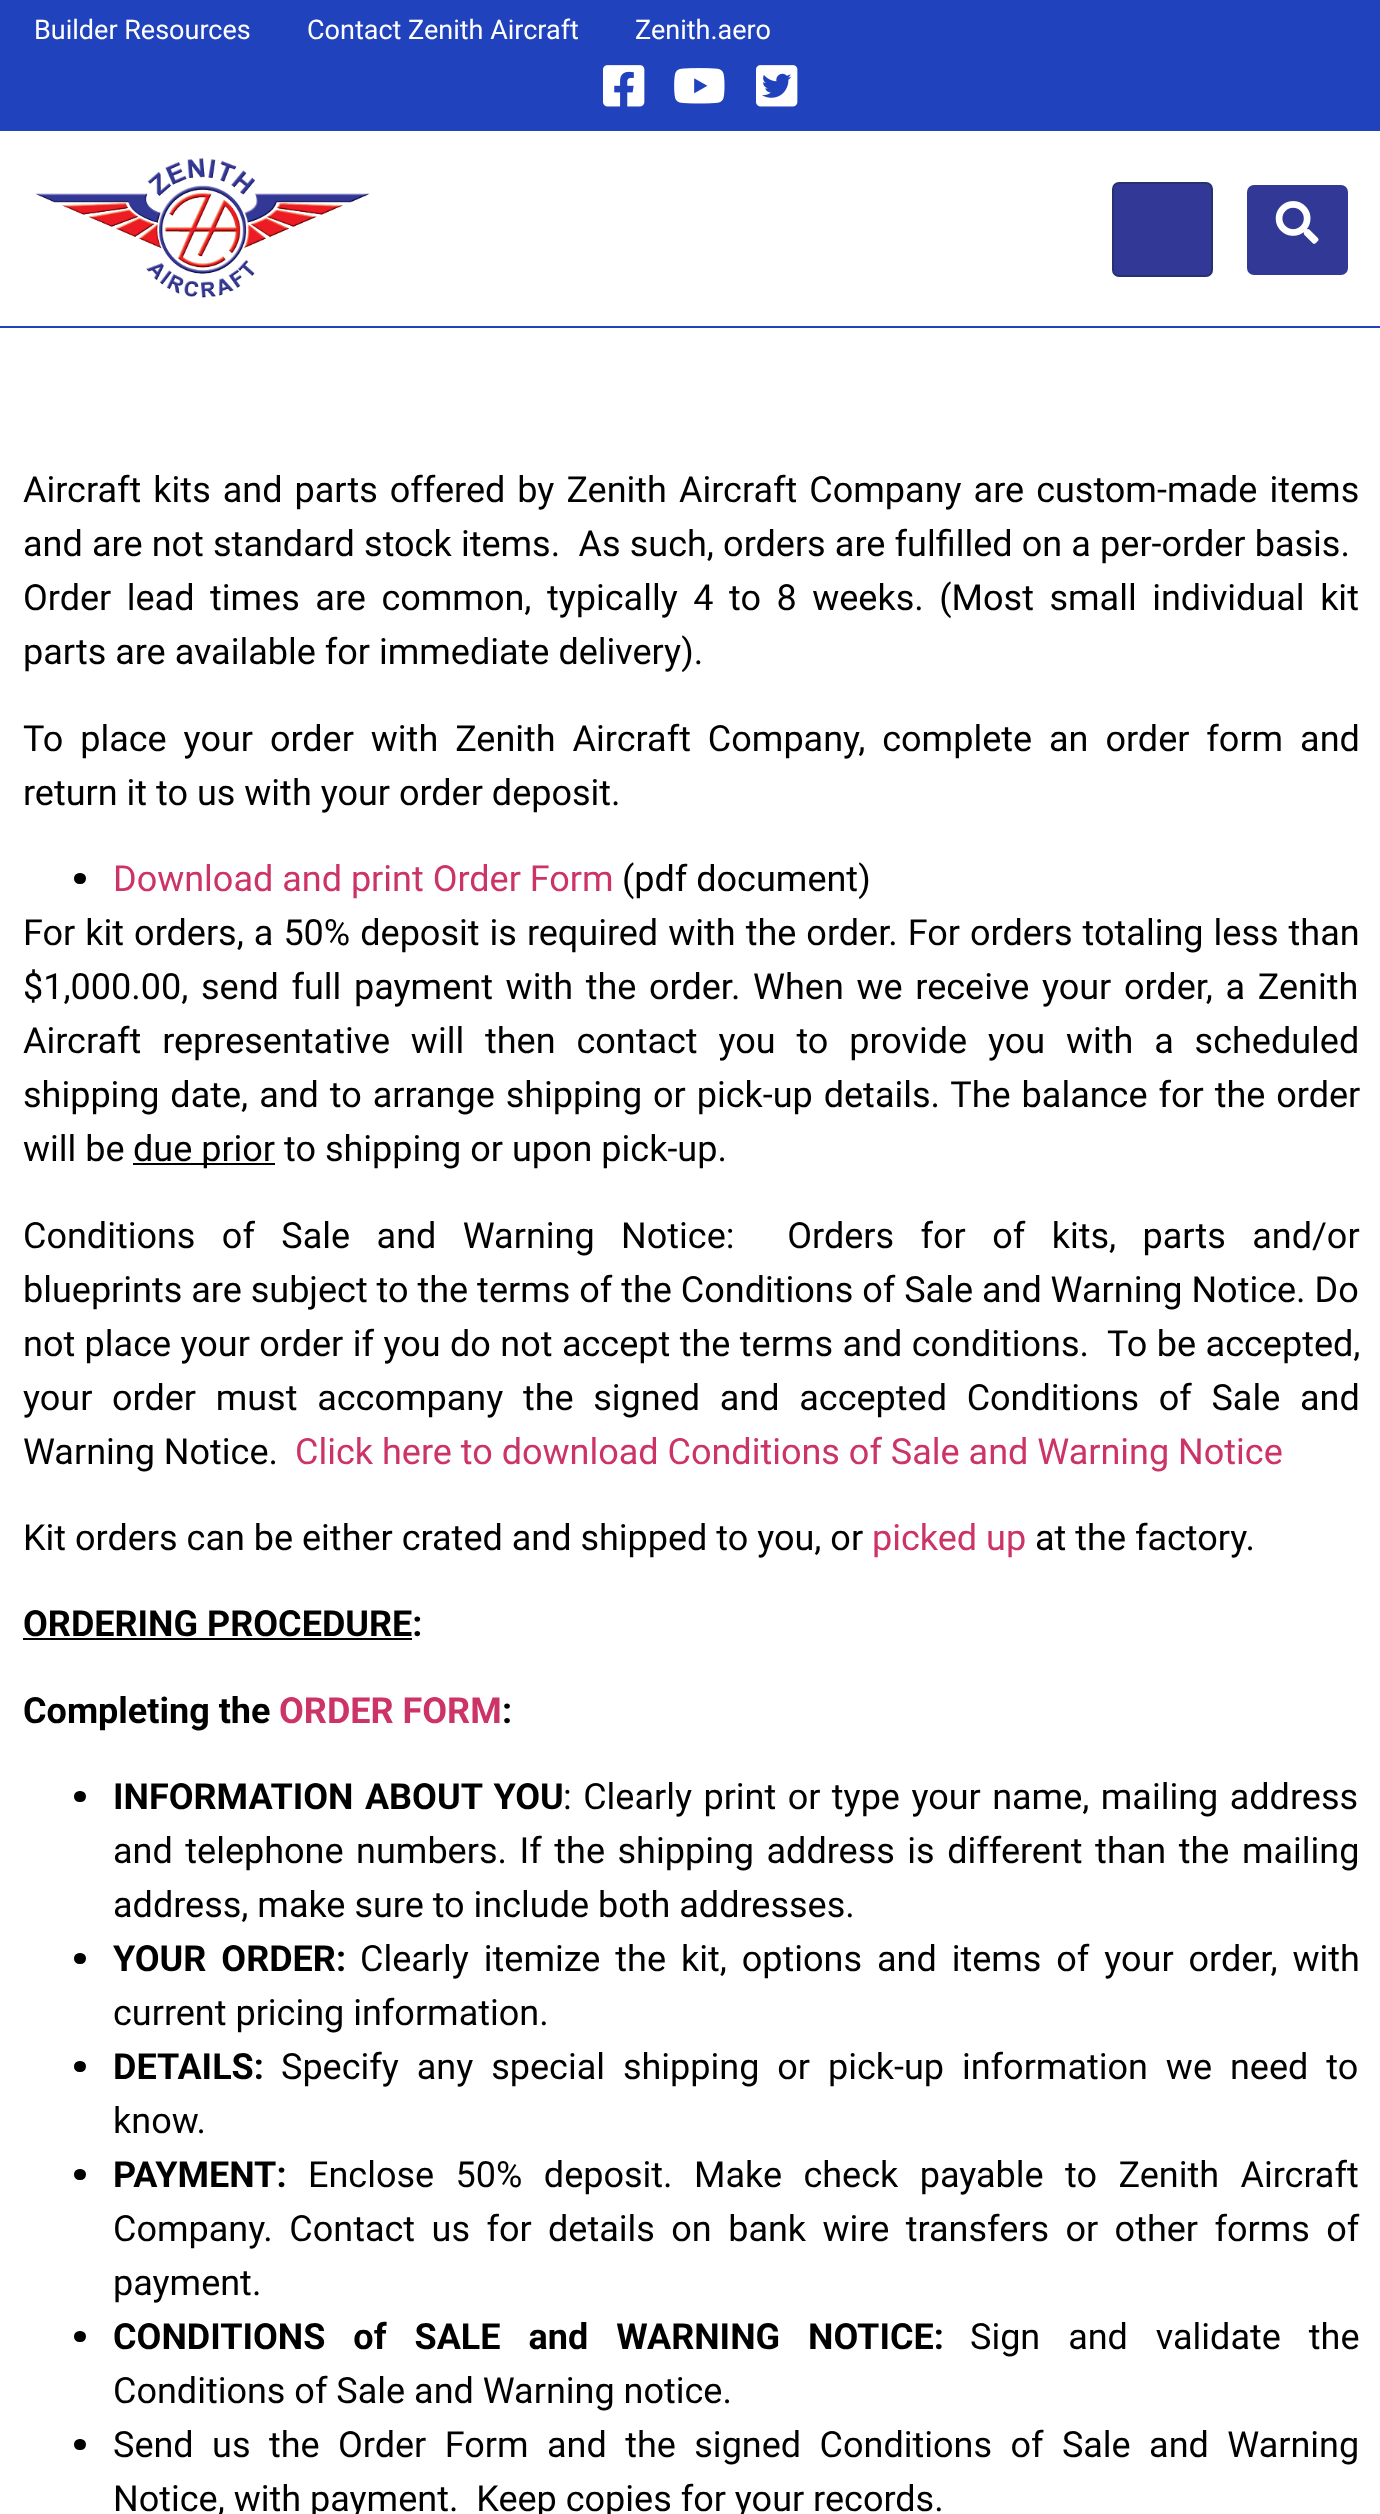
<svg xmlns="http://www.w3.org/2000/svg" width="1380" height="2514">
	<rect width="100%" height="100%" fill="#FFFFFF" />
	<rect x="0" y="326" width="1380" height="2" fill="#2042BD" />
	<rect x="0" y="0" width="1380" height="131" fill="#2042BD" />
	<g font-family="Roboto" font-size="27" fill="#FFFFFF">
		<text x="34" y="39">Builder Resources</text>
		<text x="307" y="39">Contact Zenith Aircraft</text>
		<text x="635" y="39">Zenith.aero</text>
	</g>
	<image x="603" y="65" width="42" height="42" href="assets/img1.png" />
	<image x="674" y="68" width="51" height="36" href="assets/img2.png" />
	<image x="756" y="65" width="42" height="42" href="assets/img3.png" />
	<image x="35" y="158" width="335" height="140" href="assets/img4.png" />
	<rect x="1113" y="183" width="99" height="93" rx="6" fill="#323896" stroke="#273171" stroke-width="2" />
	<rect x="1247" y="185" width="101" height="90" rx="7" fill="#323896" />
	<image x="1275" y="201" width="44" height="43" href="assets/img5.png" />
	<g font-family="Roboto" font-size="36" fill="#000000">
		<text x="23" y="502" word-spacing="3.1">Aircraft kits and parts offered by Zenith Aircraft Company are custom-made items</text>
		<text x="23" y="556" word-spacing="0.25" xml:space="preserve">and are not standard stock items.  As such, orders are fulfilled on a per-order basis.</text>
		<text x="23" y="610" word-spacing="6.6">Order lead times are common, typically 4 to 8 weeks. (Most small individual kit</text>
		<text x="23" y="664">parts are available for immediate delivery).</text>
		<text x="23" y="751" word-spacing="8">To place your order with Zenith Aircraft Company, complete an order form and</text>
		<text x="23" y="805">return it to us with your order deposit.</text>
	</g>
	<rect x="74" y="873" width="12" height="11" rx="5.5" fill="#000000" />
	<text x="113" y="891" font-family="Roboto" font-size="36" fill="#CC3366">Download and print Order Form</text>
	<g font-family="Roboto" font-size="36" fill="#000000">
		<text x="622" y="891">(pdf document)</text>
		<text x="23" y="945" word-spacing="1.1">For kit orders, a 50% deposit is required with the order. For orders totaling less than</text>
		<text x="23" y="999" word-spacing="3.75">$1,000.00, send full payment with the order. When we receive your order, a Zenith</text>
		<text x="23" y="1053" word-spacing="11.9">Aircraft representative will then contact you to provide you with a scheduled</text>
		<text x="23" y="1107" word-spacing="2">shipping date, and to arrange shipping or pick-up details. The balance for the order</text>
		<text x="23" y="1161">will be</text>
	</g>
	<rect x="133" y="1163" width="142" height="2" fill="#000000" />
	<g font-family="Roboto" font-size="36" fill="#000000">
		<text x="133" y="1161">due prior to shipping or upon pick-up.</text>
		<text x="23" y="1248" word-spacing="17.5" xml:space="preserve">Conditions of Sale and Warning Notice:  Orders for of kits, parts and/or</text>
		<text x="23" y="1302">blueprints are subject to the terms of the Conditions of Sale and Warning Notice. Do</text>
		<text x="23" y="1356" word-spacing="0.5" xml:space="preserve">not place your order if you do not accept the terms and conditions.  To be accepted,</text>
		<text x="23" y="1410" word-spacing="10.75">your order must accompany the signed and accepted Conditions of Sale and</text>
		<text x="23" y="1464">Warning Notice.</text>
	</g>
	<text x="295" y="1464" font-family="Roboto" font-size="36" fill="#CC3366">Click here to download Conditions of Sale and Warning Notice</text>
	<text x="23" y="1550" font-family="Roboto" font-size="36" fill="#000000">Kit orders can be either crated and shipped to you, or</text>
	<text x="872" y="1550" font-family="Roboto" font-size="36" fill="#CC3366">picked up</text>
	<text x="1035" y="1550" font-family="Roboto" font-size="36" fill="#000000">at the factory.</text>
	<text x="23" y="1636" font-family="Roboto" font-size="36" font-weight="700" fill="#000000">ORDERING PROCEDURE:</text>
	<rect x="23" y="1638" width="389" height="2" fill="#000000" />
	<text x="23" y="1723" font-family="Roboto" font-size="36" font-weight="700" fill="#000000">Completing the</text>
	<text x="279" y="1723" font-family="Roboto" font-size="36" font-weight="700" fill="#CC3366">ORDER FORM</text>
	<text x="502" y="1723" font-family="Roboto" font-size="36" font-weight="700" fill="#000000">:</text>
	<rect x="74" y="1791" width="12" height="11" rx="5.5" fill="#000000" />
	<text x="113" y="1809" word-spacing="2.5" font-family="Roboto" font-size="36" font-weight="700" fill="#000000">INFORMATION ABOUT YOU</text>
	<g font-family="Roboto" font-size="36" fill="#000000">
		<text x="563" y="1809" word-spacing="2.5">: Clearly print or type your name, mailing address</text>
		<text x="113" y="1863" word-spacing="3.6">and telephone numbers. If the shipping address is different than the mailing</text>
		<text x="113" y="1917">address, make sure to include both addresses.</text>
	</g>
	<rect x="74" y="1953" width="12" height="11" rx="5.5" fill="#000000" />
	<text x="113" y="1971" word-spacing="6" font-family="Roboto" font-size="36" font-weight="700" fill="#000000">YOUR ORDER:</text>
	<g font-family="Roboto" font-size="36" fill="#000000">
		<text x="360" y="1971" word-spacing="6">Clearly itemize the kit, options and items of your order, with</text>
		<text x="113" y="2025">current pricing information.</text>
	</g>
	<rect x="74" y="2061" width="12" height="11" rx="5.5" fill="#000000" />
	<text x="113" y="2079" font-family="Roboto" font-size="36" font-weight="700" fill="#000000">DETAILS:</text>
	<g font-family="Roboto" font-size="36" fill="#000000">
		<text x="281" y="2079" word-spacing="9">Specify any special shipping or pick-up information we need to</text>
		<text x="113" y="2133">know.</text>
	</g>
	<rect x="74" y="2169" width="12" height="11" rx="5.5" fill="#000000" />
	<text x="113" y="2187" font-family="Roboto" font-size="36" font-weight="700" fill="#000000">PAYMENT:</text>
	<g font-family="Roboto" font-size="36" fill="#000000">
		<text x="308" y="2187" word-spacing="12.5">Enclose 50% deposit. Make check payable to Zenith Aircraft</text>
		<text x="113" y="2241" word-spacing="7.5">Company. Contact us for details on bank wire transfers or other forms of</text>
		<text x="113" y="2295">payment.</text>
	</g>
	<rect x="74" y="2331" width="12" height="11" rx="5.5" fill="#000000" />
	<text x="113" y="2349" word-spacing="19" font-family="Roboto" font-size="36" font-weight="700" fill="#000000">CONDITIONS of SALE and WARNING NOTICE:</text>
	<g font-family="Roboto" font-size="36" fill="#000000">
		<text x="970" y="2349" word-spacing="19">Sign and validate the</text>
		<text x="113" y="2403">Conditions of Sale and Warning notice.</text>
	</g>
	<rect x="74" y="2439" width="12" height="11" rx="5.5" fill="#000000" />
	<g font-family="Roboto" font-size="36" fill="#000000">
		<text x="113" y="2457" word-spacing="9.5">Send us the Order Form and the signed Conditions of Sale and Warning</text>
		<text x="113" y="2511" xml:space="preserve">Notice, with payment.  Keep copies for your records.</text>
	</g>
</svg>
